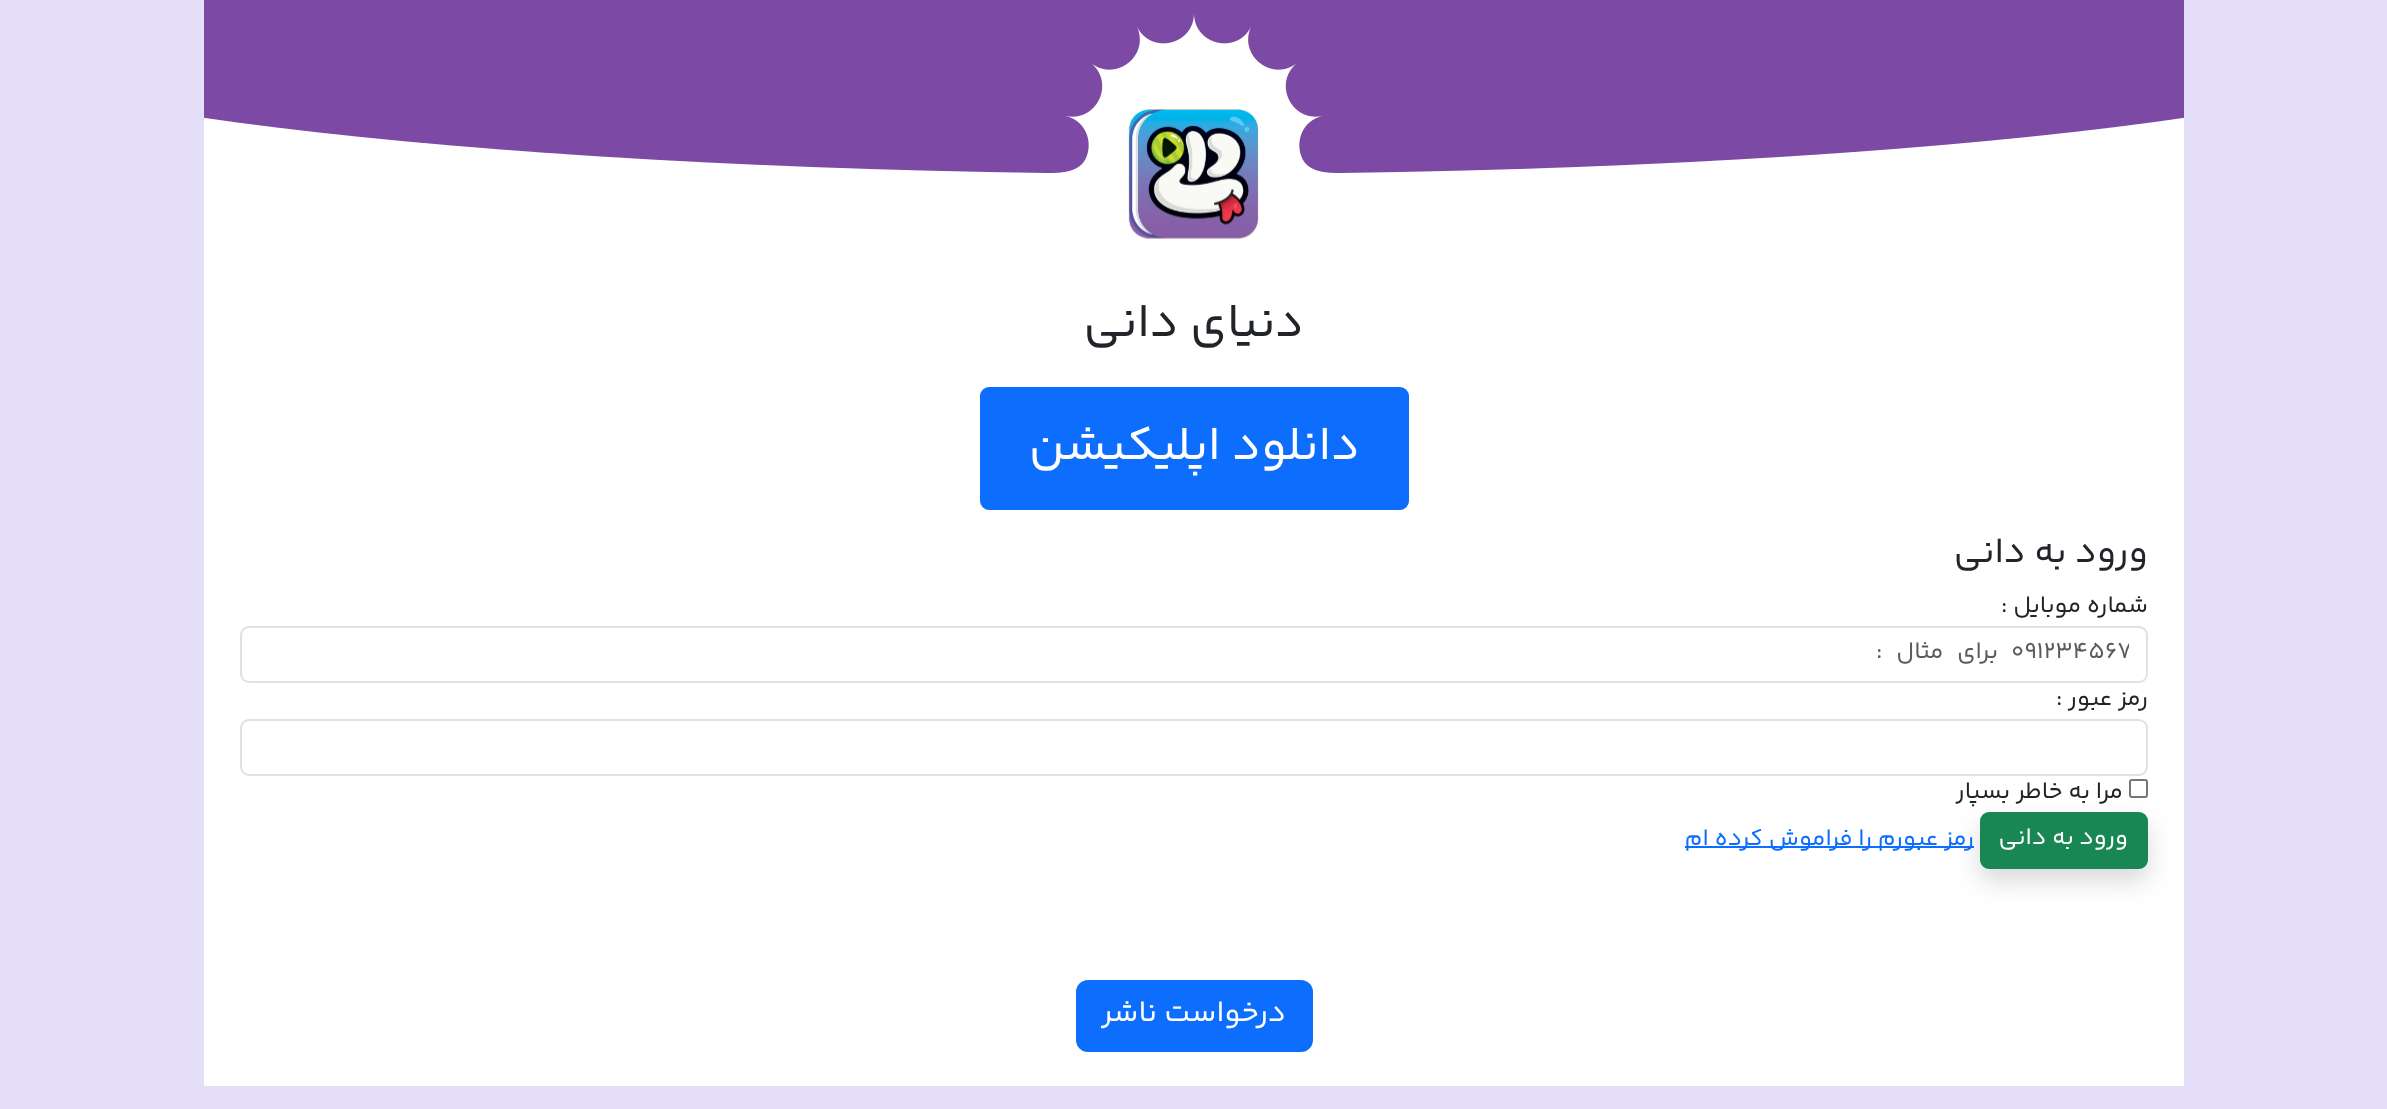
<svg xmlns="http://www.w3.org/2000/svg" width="2387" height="1109">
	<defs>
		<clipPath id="clip1"><rect x="260" y="635" width="1869" height="37" /></clipPath>
	</defs>
	<rect width="100%" height="100%" fill="#E5DEF8" />
	<rect x="204" y="13" width="1980" height="1073" fill="#FFFFFF" />
	<image x="204" y="0" width="1980" height="173" href="assets/img1.png" />
	<image x="1128" y="109" width="131" height="131" href="assets/img2.png" />
	<text x="1304" y="336" font-family="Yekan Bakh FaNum" font-size="47.75" direction="rtl" fill="#212529">دنیای دانی</text>
	<rect x="981" y="388" width="427" height="121" rx="8" fill="#0D6EFD" stroke="#0D6EFD" stroke-width="2" />
	<text x="1360" y="459" font-family="Yekan Bakh FaNum" font-size="48" direction="rtl" fill="#FFFFFF">دانلود اپلیکیشن</text>
	<text x="2148" y="562" font-family="Yekan Bakh FaNum" font-size="36" direction="rtl" fill="#212529">ورود به دانی</text>
	<text x="2148" y="612" font-family="Yekan Bakh FaNum" font-size="24" direction="rtl" fill="#212529">شماره موبایل :</text>
	<rect x="241" y="627" width="1906" height="55" rx="8" fill="none" stroke="#DEE2E6" stroke-width="2" />
	<g clip-path="url(#clip1)">
		<text x="2011" y="658" font-family="Yekan Bakh FaNum" font-size="24" fill="#595C5F">091234567</text>
	</g>
	<text x="1998" y="658" word-spacing="8" font-family="Yekan Bakh FaNum" font-size="24" direction="rtl" fill="#595C5F">برای مثال :</text>
	<text x="2148" y="705" font-family="Yekan Bakh FaNum" font-size="24" direction="rtl" fill="#212529">رمز عبور :</text>
	<rect x="241" y="720" width="1906" height="55" rx="8" fill="none" stroke="#DEE2E6" stroke-width="2" />
	<rect x="2130" y="780" width="17" height="17" rx="2" fill="none" stroke="#767676" stroke-width="2" />
	<text x="2123" y="798" font-family="Yekan Bakh FaNum" font-size="24" direction="rtl" fill="#212529">مرا به خاطر بسپار</text>
	<rect x="1685" y="846" width="289" height="2" fill="#0D6EFD" />
	<rect x="1980" y="824" width="168" height="57" rx="9" fill="#000000" fill-opacity="0.15" filter="blur(12px)" />
	<rect x="1981" y="813" width="166" height="55" rx="8" fill="#198754" stroke="#198754" stroke-width="2" />
	<text x="2128" y="844" font-family="Yekan Bakh FaNum" font-size="24" direction="rtl" fill="#FFFFFF">ورود به دانی</text>
	<text x="1974" y="845" font-family="Yekan Bakh FaNum" font-size="24" direction="rtl" fill="#0D6EFD">رمز عبورم را فراموش کرده ام</text>
	<rect x="1077" y="981" width="235" height="70" rx="11" fill="#0D6EFD" stroke="#0D6EFD" stroke-width="2" />
	<text x="1286" y="1021" font-family="Yekan Bakh FaNum" font-size="30" direction="rtl" fill="#FFFFFF">درخواست ناشر</text>
</svg>
